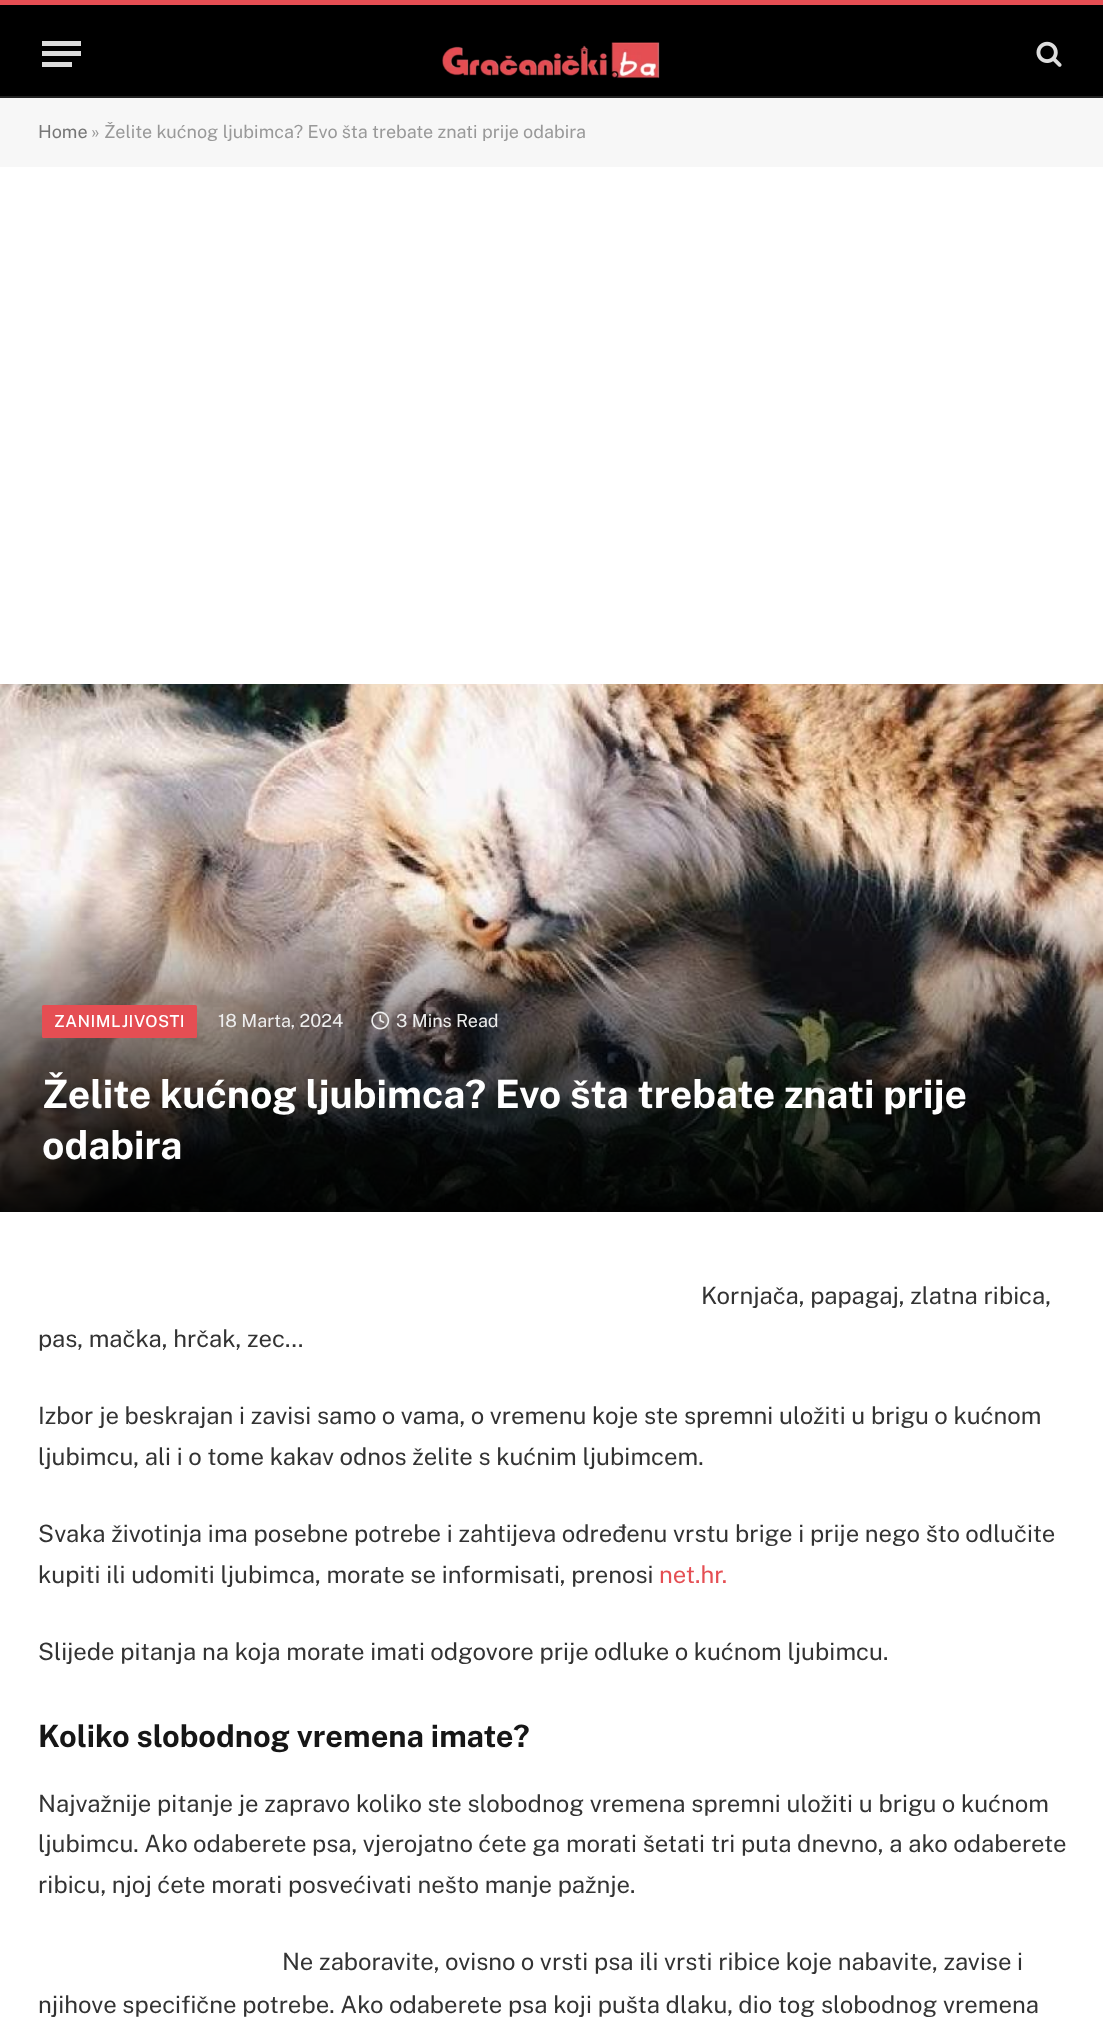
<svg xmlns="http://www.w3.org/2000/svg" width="1103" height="2029">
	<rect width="100%" height="100%" fill="#FFFFFF" />
	<rect x="0" y="5" width="1103" height="91" fill="#000000" />
	<rect x="0" y="0" width="1103" height="5" fill="#E54E53" />
	<rect x="0" y="96" width="1103" height="2" fill="#222222" />
	<rect x="42" y="62" width="30" height="5" fill="#DDDDDD" />
	<rect x="42" y="41" width="39" height="5" fill="#DDDDDD" />
	<rect x="42" y="51" width="39" height="5" fill="#DDDDDD" />
	<image x="442" y="42" width="218" height="37" href="assets/img1.png" />
	<image x="1036" y="41" width="26" height="26" href="assets/img2.png" />
	<rect x="0" y="98" width="1103" height="69" fill="#F7F7F7" />
	<text x="38" y="138" font-family="Public Sans" font-size="18" fill="#777777">Home</text>
	<text x="91" y="138" font-family="Public Sans" font-size="18" fill="#999999">» Želite kućnog ljubimca? Evo šta trebate znati prije odabira</text>
	<image x="0" y="684" width="1103" height="528" href="assets/img3.png" />
	<rect x="42" y="1005" width="155" height="33" rx="1.5" fill="#E54E53" />
	<text x="54" y="1027" font-family="Public Sans" font-size="16.5" font-weight="500" letter-spacing="0.5" fill="#FFFFFF">ZANIMLJIVOSTI</text>
	<text x="218" y="1027" font-family="Public Sans" font-size="18" fill="#EEEEEE">18 Marta, 2024</text>
	<image x="371" y="1011" width="19" height="19" href="assets/img4.png" />
	<text x="396" y="1027" font-family="Public Sans" font-size="18" fill="#EEEEEE">3 Mins Read</text>
	<g font-family="Public Sans" font-size="39" font-weight="700" fill="#FFFFFF">
		<text x="42" y="1108">Želite kućnog ljubimca? Evo šta trebate znati prije</text>
		<text x="42" y="1159">odabira</text>
	</g>
	<g font-family="Public Sans" font-size="23.9" fill="#333333">
		<text x="701" y="1304">Kornjača, papagaj, zlatna ribica,</text>
		<text x="38" y="1347">pas, mačka, hrčak, zec…</text>
		<text x="38" y="1424">Izbor je beskrajan i zavisi samo o vama, o vremenu koje ste spremni uložiti u brigu o kućnom</text>
		<text x="38" y="1465">ljubimcu, ali i o tome kakav odnos želite s kućnim ljubimcem.</text>
		<text x="38" y="1542">Svaka životinja ima posebne potrebe i zahtijeva određenu vrstu brige i prije nego što odlučite</text>
		<text x="38" y="1583">kupiti ili udomiti ljubimca, morate se informisati, prenosi</text>
	</g>
	<text x="659" y="1583" font-family="Public Sans" font-size="23.9" fill="#E54E53">net.hr.</text>
	<text x="38" y="1660" font-family="Public Sans" font-size="23.9" fill="#333333">Slijede pitanja na koja morate imati odgovore prije odluke o kućnom ljubimcu.</text>
	<text x="38" y="1747" font-family="Public Sans" font-size="30.75" font-weight="700" fill="#161616">Koliko slobodnog vremena imate?</text>
	<g font-family="Public Sans" font-size="23.9" fill="#333333">
		<text x="38" y="1812">Najvažnije pitanje je zapravo koliko ste slobodnog vremena spremni uložiti u brigu o kućnom</text>
		<text x="38" y="1852">ljubimcu. Ako odaberete psa, vjerojatno ćete ga morati šetati tri puta dnevno, a ako odaberete</text>
		<text x="38" y="1893">ribicu, njoj ćete morati posvećivati nešto manje pažnje.</text>
		<text x="282" y="1970">Ne zaboravite, ovisno o vrsti psa ili vrsti ribice koje nabavite, zavise i</text>
		<text x="38" y="2013">njihove specifične potrebe. Ako odaberete psa koji pušta dlaku, dio tog slobodnog vremena</text>
	</g>
</svg>
